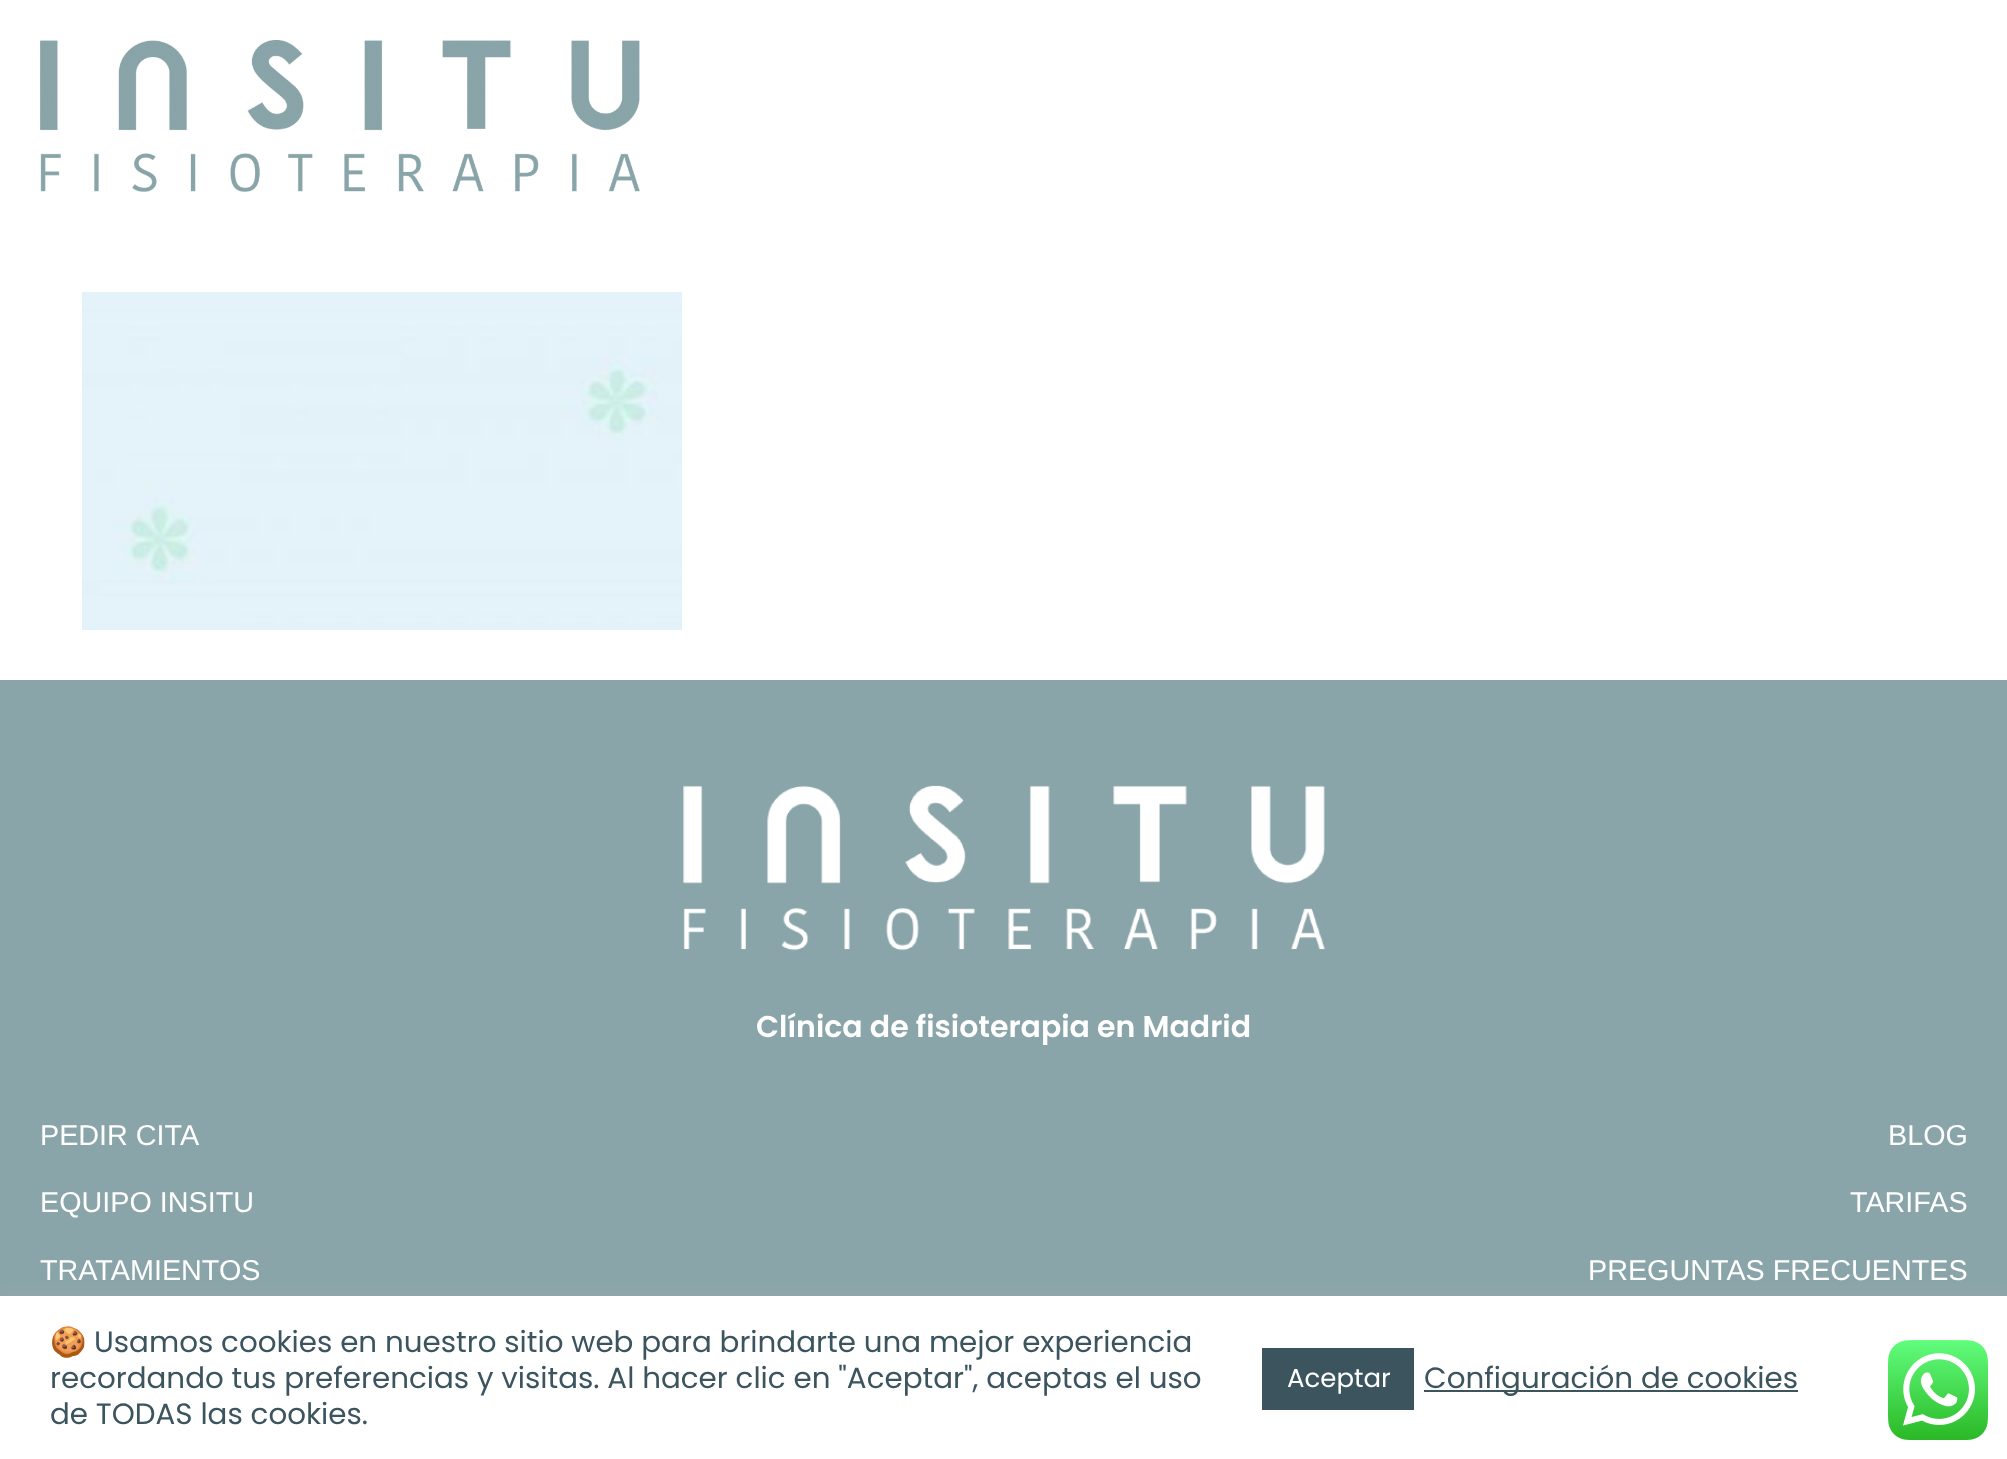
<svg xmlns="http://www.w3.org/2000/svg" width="2007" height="1459">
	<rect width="100%" height="100%" fill="#FFFFFF" />
	<image x="40" y="40" width="600" height="152" href="assets/img1.png" />
	<image x="82" y="292" width="600" height="338" href="assets/img2.png" />
	<rect x="0" y="680" width="2007" height="616" fill="#8AA5A9" />
	<image x="683" y="785" width="642" height="166" href="assets/img3.png" />
	<text x="756" y="1037" font-family="Poppins" font-size="30" font-weight="600" fill="#FFFFFF">Clínica de fisioterapia en Madrid</text>
	<g font-family="Liberation Sans" font-size="28.75" fill="#FFFFFF">
		<text x="40" y="1145">PEDIR CITA</text>
		<text x="40" y="1212">EQUIPO INSITU</text>
		<text x="40" y="1280">TRATAMIENTOS</text>
		<text x="1888" y="1145">BLOG</text>
		<text x="1850" y="1212">TARIFAS</text>
		<text x="1588" y="1280">PREGUNTAS FRECUENTES</text>
	</g>
	<rect x="0" y="1294" width="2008" height="164" fill="#ACABAB" fill-opacity="0.3" filter="blur(10px)" />
	<rect x="0" y="1296" width="2007" height="163" fill="#FFFFFF" />
	<text x="50" y="1352" font-family="Noto Color Emoji" font-size="29.35" fill="#3B545E">🍪</text>
	<g font-family="Poppins" font-size="29.35" fill="#3B545E">
		<text x="94" y="1352">Usamos cookies en nuestro sitio web para brindarte una mejor experiencia</text>
		<text x="50" y="1388">recordando tus preferencias y visitas. Al hacer clic en "Aceptar", aceptas el uso</text>
		<text x="50" y="1424">de TODAS las cookies.</text>
	</g>
	<rect x="1262" y="1348" width="152" height="62" fill="#3B545E" />
	<text x="1287" y="1387" font-family="Poppins" font-size="26" fill="#FFFFFF">Aceptar</text>
	<rect x="1424" y="1390" width="374" height="2" fill="#3B545E" />
	<text x="1424" y="1388" font-family="Poppins" font-size="29.35" fill="#3B545E">Configuración de cookies</text>
	<image x="1888" y="1340" width="100" height="100" href="assets/img4.png" />
</svg>
